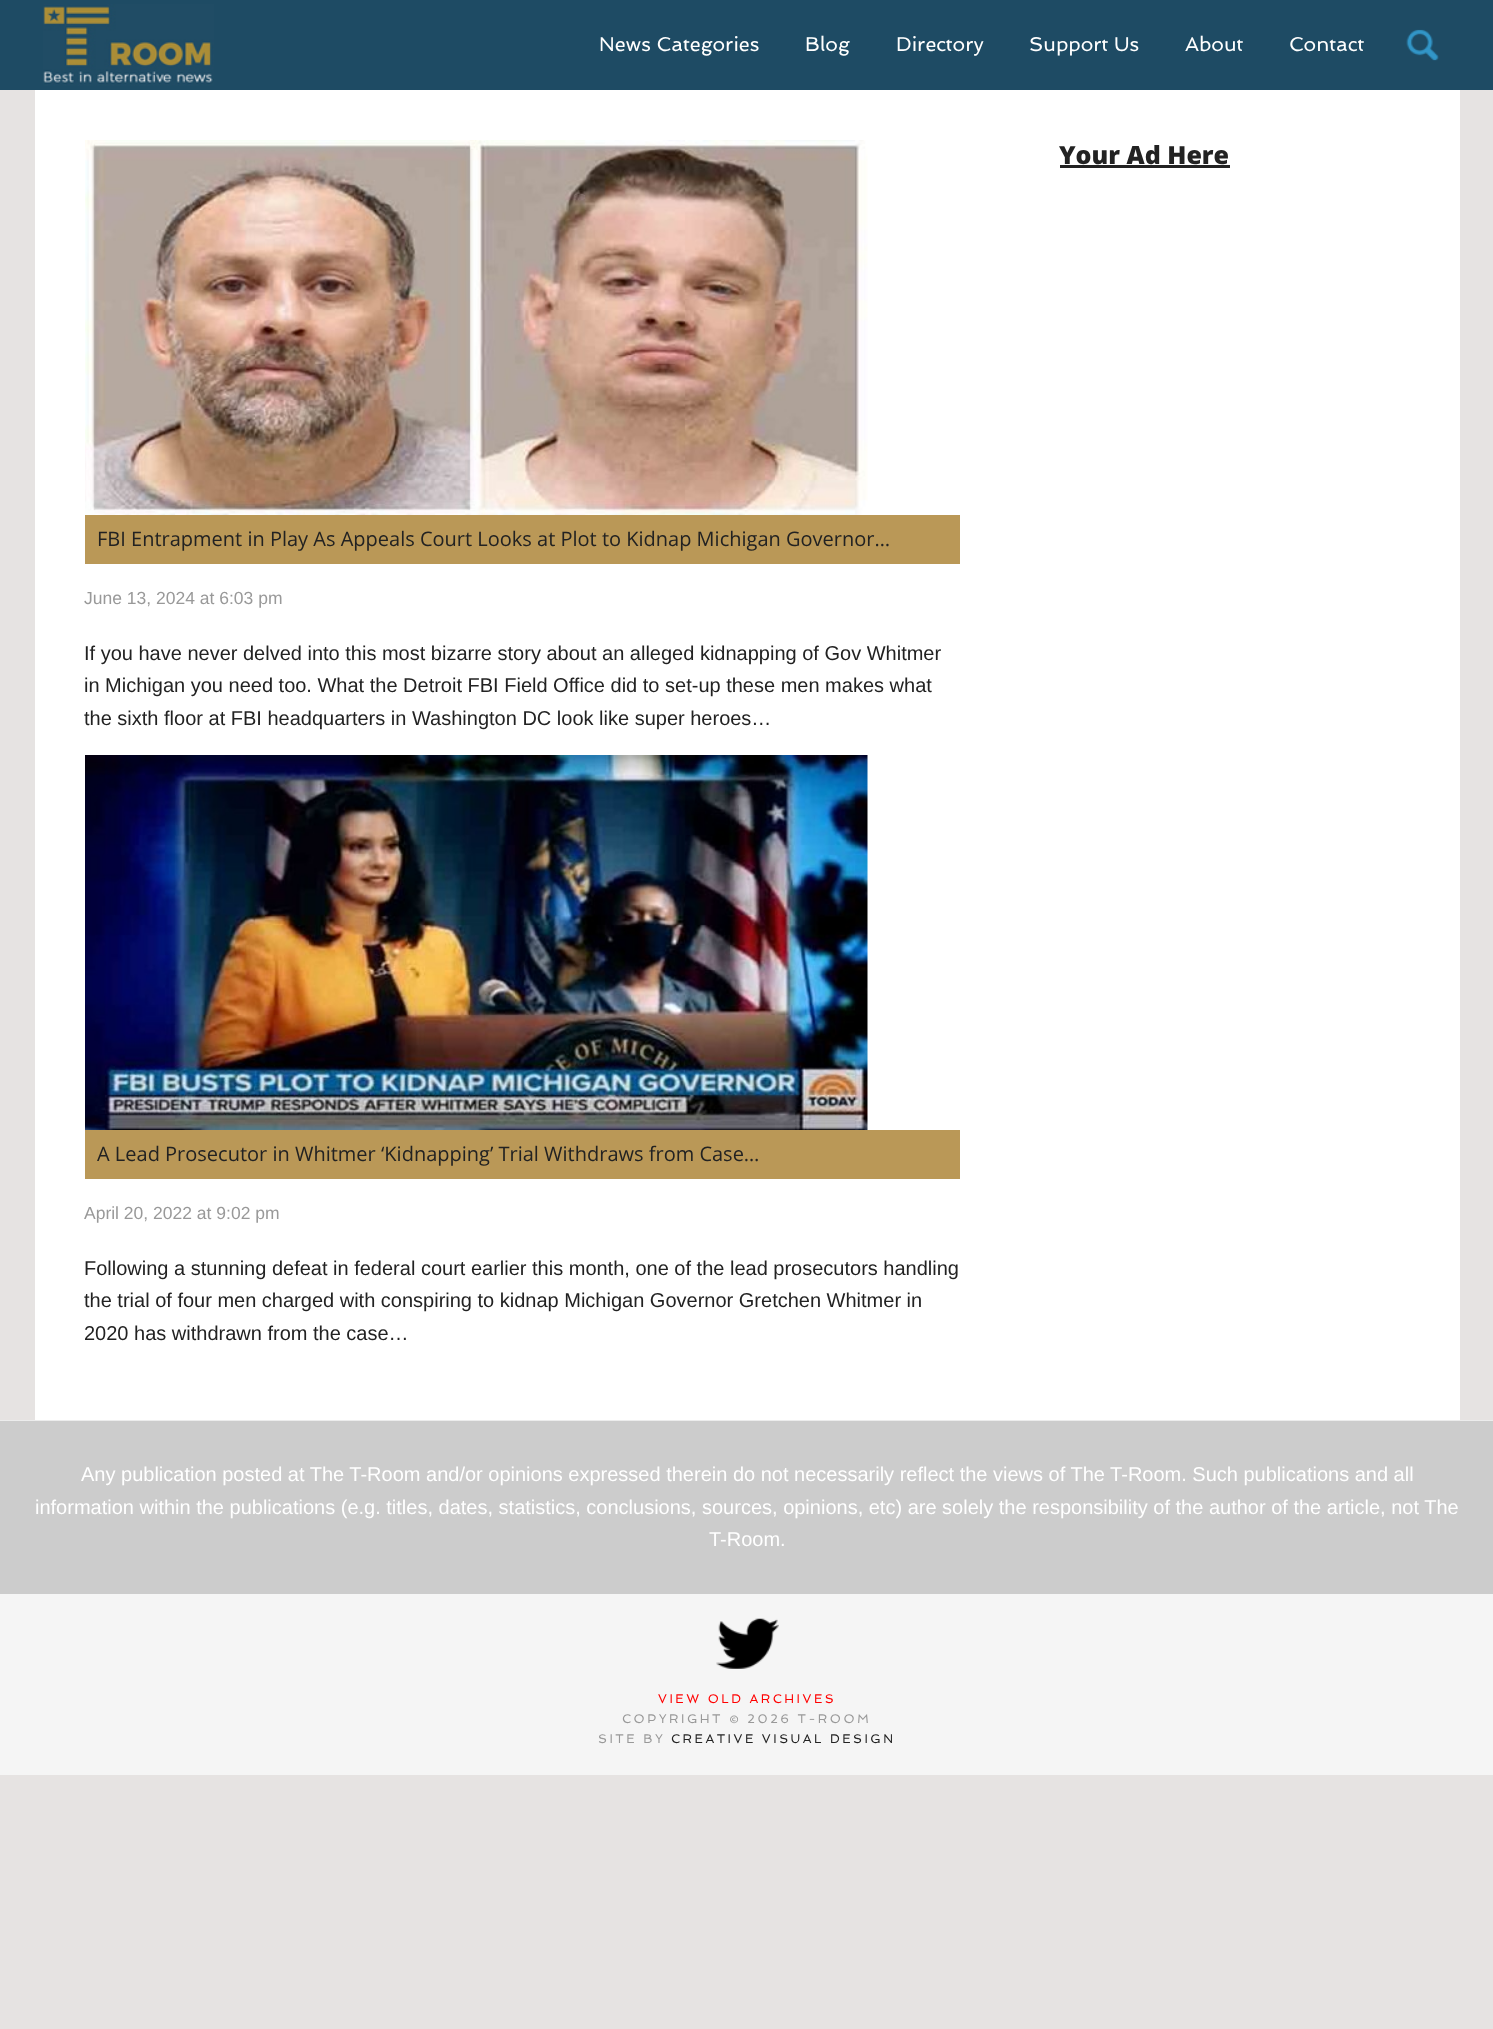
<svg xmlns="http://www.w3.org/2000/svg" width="1493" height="2029">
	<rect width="100%" height="100%" fill="#E6E3E2" />
	<rect x="0" y="0" width="1493" height="90" fill="#1E4B64" />
	<image x="43" y="4" width="171" height="82" href="assets/img1.png" />
	<g font-family="Spinnaker" font-size="20" fill="#FFFFFF">
		<text x="599" y="51">News Categories</text>
		<text x="805" y="51">Blog</text>
		<text x="896" y="51">Directory</text>
		<text x="1029" y="51">Support Us</text>
		<text x="1185" y="51">About</text>
		<text x="1289" y="51">Contact</text>
	</g>
	<image x="1406" y="29" width="33" height="32" href="assets/img2.png" />
	<rect x="35" y="90" width="1425" height="1330" fill="#FFFFFF" />
	<text x="1059" y="164" font-family="Open Sans" font-size="25" font-weight="800" fill="#222222">Your Ad Here</text>
	<rect x="1060" y="165" width="170" height="3" fill="#222222" />
	<image x="85" y="140" width="783" height="375" href="assets/img3.png" />
	<rect x="85" y="515" width="875" height="49" fill="#BA9857" />
	<text x="97" y="546" font-family="Open Sans" font-size="20" fill="#222222">FBI Entrapment in Play As Appeals Court Looks at Plot to Kidnap Michigan Governor…</text>
	<text x="84" y="604" font-family="Liberation Sans" font-size="17.5" fill="#999999">June 13, 2024 at 6:03 pm</text>
	<g font-family="Liberation Sans" font-size="20" fill="#222222">
		<text x="84" y="660">If you have never delved into this most bizarre story about an alleged kidnapping of Gov Whitmer</text>
		<text x="84" y="692">in Michigan you need too. What the Detroit FBI Field Office did to set-up these men makes what</text>
		<text x="84" y="725">the sixth floor at FBI headquarters in Washington DC look like super heroes…</text>
	</g>
	<image x="85" y="755" width="783" height="375" href="assets/img4.png" />
	<rect x="85" y="1130" width="875" height="49" fill="#BA9857" />
	<text x="97" y="1161" font-family="Open Sans" font-size="20" fill="#222222">A Lead Prosecutor in Whitmer ‘Kidnapping’ Trial Withdraws from Case…</text>
	<text x="84" y="1219" font-family="Liberation Sans" font-size="17.5" fill="#999999">April 20, 2022 at 9:02 pm</text>
	<g font-family="Liberation Sans" font-size="20" fill="#222222">
		<text x="84" y="1275">Following a stunning defeat in federal court earlier this month, one of the lead prosecutors handling</text>
		<text x="84" y="1307">the trial of four men charged with conspiring to kidnap Michigan Governor Gretchen Whitmer in</text>
		<text x="84" y="1340">2020 has withdrawn from the case…</text>
	</g>
	<rect x="0" y="1421" width="1493" height="173" fill="#CCCCCC" />
	<rect x="0" y="1420" width="1493" height="1" fill="#ECECEC" />
	<g font-family="Liberation Sans" font-size="20" fill="#FFFFFF">
		<text x="81" y="1481">Any publication posted at The T-Room and/or opinions expressed therein do not necessarily reflect the views of The T-Room. Such publications and all</text>
		<text x="35" y="1514">information within the publications (e.g. titles, dates, statistics, conclusions, sources, opinions, etc) are solely the responsibility of the author of the article, not The</text>
		<text x="709" y="1546">T-Room.</text>
	</g>
	<rect x="0" y="1594" width="1493" height="181" fill="#F5F5F5" />
	<image x="716" y="1618" width="63" height="51" href="assets/img5.png" />
	<text x="658" y="1703" font-family="Spinnaker" font-size="12.5" letter-spacing="2.5" fill="#FF0000">VIEW OLD ARCHIVES</text>
	<g font-family="Spinnaker" font-size="12.5" letter-spacing="2.5" fill="#999999">
		<text x="622" y="1723">COPYRIGHT © 2026 T-ROOM</text>
		<text x="598" y="1743">SITE BY</text>
	</g>
	<text x="671" y="1743" font-family="Spinnaker" font-size="12.5" letter-spacing="2.5" fill="#222222">CREATIVE VISUAL DESIGN</text>
</svg>
